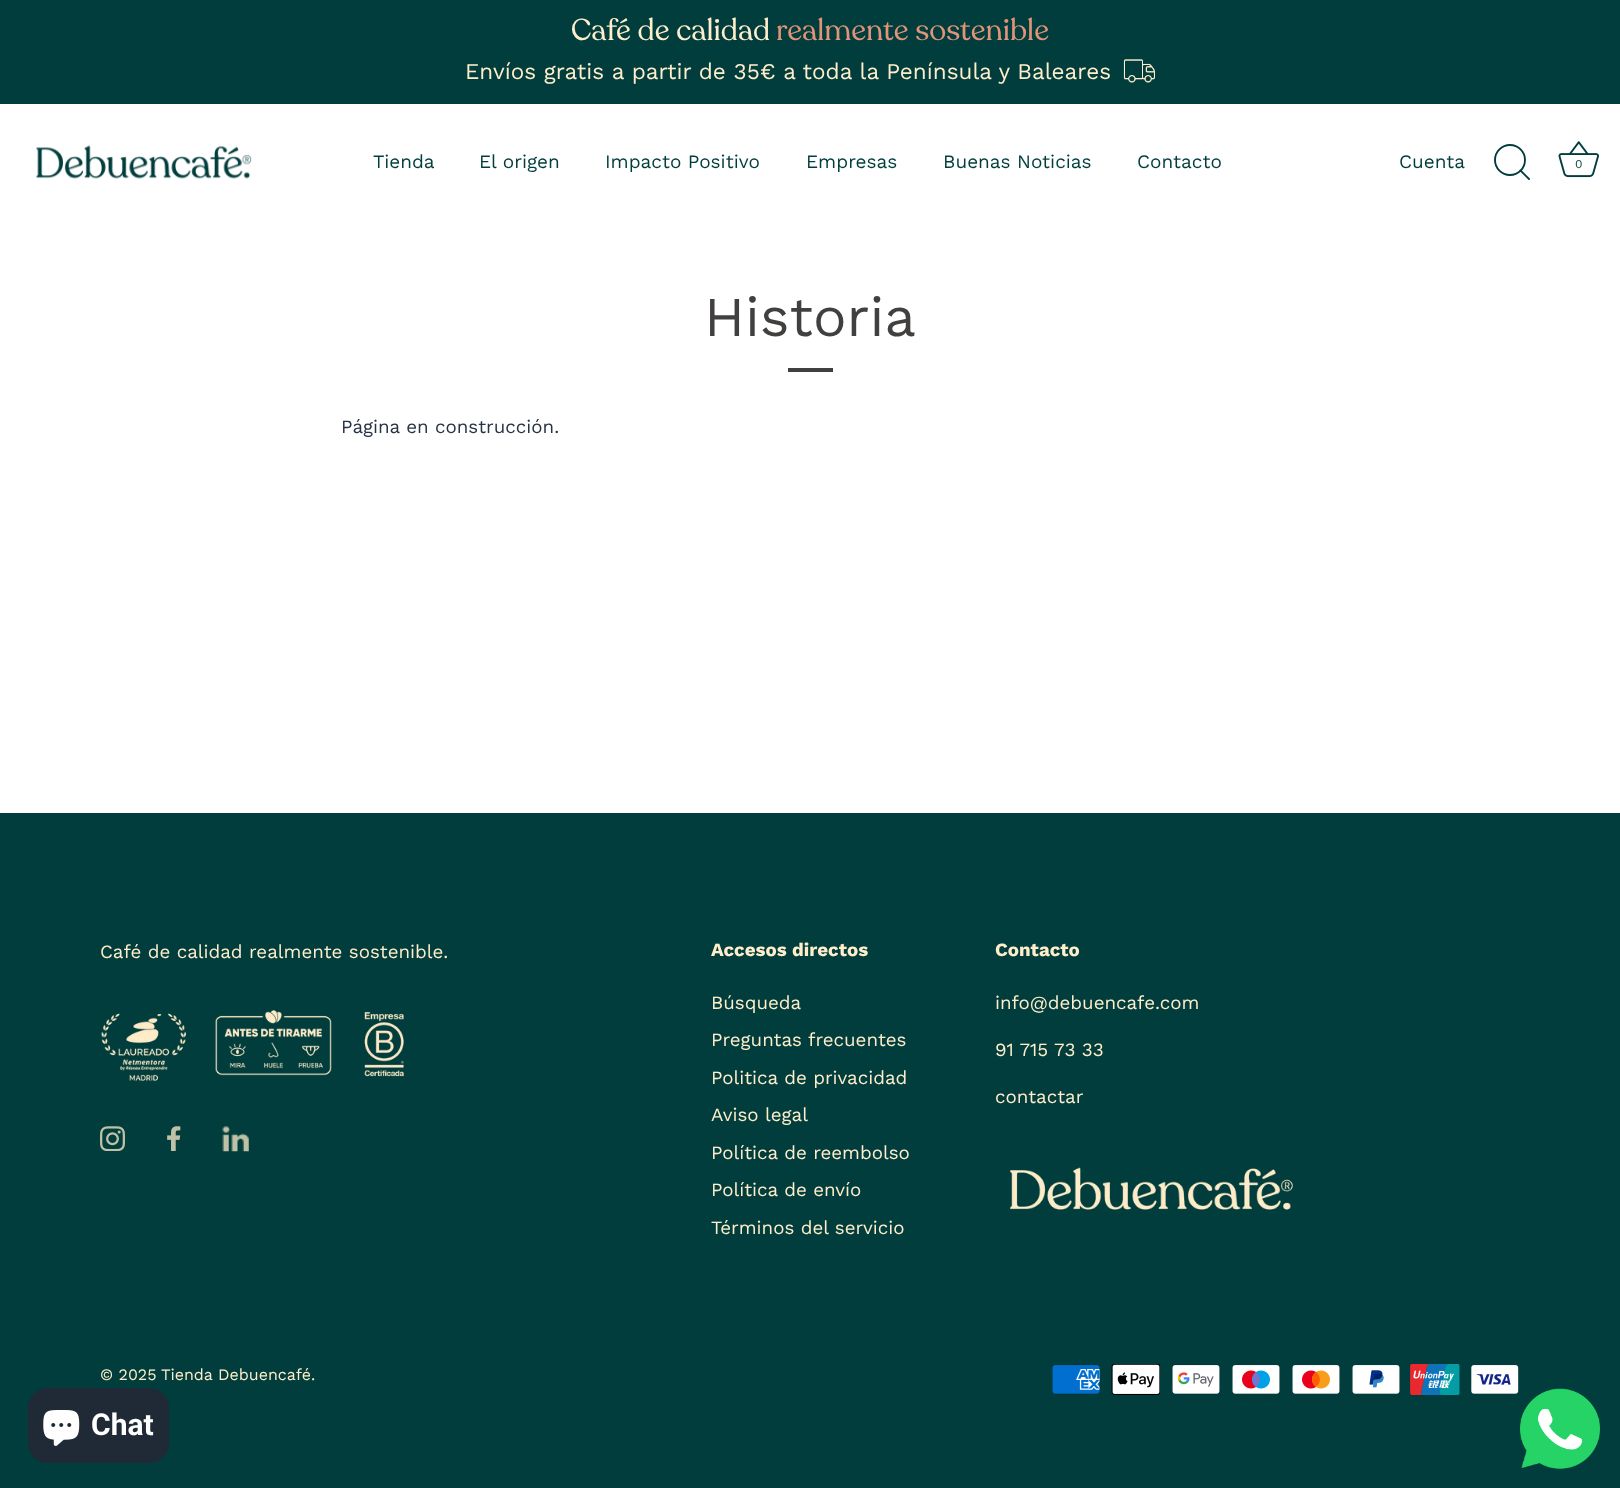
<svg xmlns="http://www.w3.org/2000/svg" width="1620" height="1488">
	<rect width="100%" height="100%" fill="#FFFFFF" />
	<rect x="0" y="0" width="1620" height="104" fill="#003D3C" />
	<text x="571" y="40" font-family="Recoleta" font-size="30" fill="#FFEECB">Café de calidad</text>
	<text x="776" y="40" font-family="Recoleta" font-size="30" fill="#E09478">realmente sostenible</text>
	<text x="465" y="79" font-family="Work Sans" font-size="22.5" fill="#FFEECB">Envíos gratis a partir de 35€ a toda la Península y Baleares</text>
	<image x="1123" y="59" width="32" height="24" href="assets/img1.png" />
	<image x="36" y="145" width="216" height="34" href="assets/img2.png" />
	<g font-family="Work Sans" font-size="19" fill="#003D3C">
		<text x="373" y="168">Tienda</text>
		<text x="479" y="168">El origen</text>
		<text x="605" y="168">Impacto Positivo</text>
		<text x="806" y="168">Empresas</text>
		<text x="943" y="168">Buenas Noticias</text>
		<text x="1137" y="168">Contacto</text>
		<text x="1399" y="168">Cuenta</text>
	</g>
	<circle cx="1510" cy="160" r="15" fill="none" stroke="#003D3C" stroke-width="1.9" />
	<path d="M1529 179L1520.5 170.5" fill="none" stroke="#003D3C" stroke-width="1.9" stroke-linecap="round" stroke-linejoin="round" />
	<image x="1558" y="141" width="41" height="37" href="assets/img3.png" />
	<text x="1575" y="168" font-family="Work Sans" font-size="12" fill="#003D3C">0</text>
	<text x="704" y="336" font-family="Work Sans" font-size="56" fill="#423F3F">Historia</text>
	<rect x="788" y="368" width="45" height="4" fill="#423F3F" />
	<text x="341" y="433" font-family="Work Sans" font-size="18.75" fill="#263344">Página en construcción.</text>
	<rect x="0" y="813" width="1620" height="675" fill="#003D3C" />
	<text x="100" y="958" font-family="Work Sans" font-size="18.75" fill="#FFEECB">Café de calidad realmente sostenible.</text>
	<image x="101" y="1010" width="303" height="71" href="assets/img4.png" />
	<image x="100" y="1126" width="25" height="25" href="assets/img5.png" />
	<image x="167" y="1126" width="14" height="25" href="assets/img6.png" />
	<image x="222" y="1126" width="27" height="26" href="assets/img7.png" />
	<text x="711" y="956" font-family="Work Sans" font-size="18.75" font-weight="700" fill="#FFEECB">Accesos directos</text>
	<g font-family="Work Sans" font-size="18.75" fill="#FFEECB">
		<text x="711" y="1009">Búsqueda</text>
		<text x="711" y="1046">Preguntas frecuentes</text>
		<text x="711" y="1084">Politica de privacidad</text>
		<text x="711" y="1121">Aviso legal</text>
		<text x="711" y="1159">Política de reembolso</text>
		<text x="711" y="1196">Política de envío</text>
		<text x="711" y="1234">Términos del servicio</text>
	</g>
	<text x="995" y="956" font-family="Work Sans" font-size="18.75" font-weight="700" fill="#FFEECB">Contacto</text>
	<g font-family="Work Sans" font-size="18.75" fill="#FFEECB">
		<text x="995" y="1009">info@debuencafe.com</text>
		<text x="995" y="1056">91 715 73 33</text>
		<text x="995" y="1103">contactar</text>
	</g>
	<image x="1010" y="1167" width="283" height="43" href="assets/img8.png" />
	<g font-family="Work Sans" font-size="16" fill="#FFEECB">
		<text x="100" y="1380">© 2025</text>
		<text x="161" y="1380">Tienda Debuencafé.</text>
	</g>
	<image x="1052" y="1364" width="48" height="31" href="assets/img9.png" />
	<image x="1111" y="1364" width="49" height="31" href="assets/img10.png" />
	<image x="1172" y="1364" width="48" height="31" href="assets/img11.png" />
	<image x="1232" y="1365" width="48" height="29" href="assets/img12.png" />
	<image x="1292" y="1365" width="48" height="29" href="assets/img13.png" />
	<image x="1352" y="1365" width="48" height="29" href="assets/img14.png" />
	<image x="1410" y="1364" width="50" height="31" href="assets/img15.png" />
	<image x="1471" y="1365" width="48" height="29" href="assets/img16.png" />
	<rect x="28" y="1388" width="141" height="75" rx="20" fill="#202A36" />
	<image x="43" y="1410" width="37" height="36" href="assets/img17.png" />
	<text x="91" y="1435" font-family="Roboto" font-size="30" font-weight="700" fill="#FFFFFF">Chat</text>
	<image x="1520" y="1388" width="80" height="81" href="assets/img18.png" />
</svg>
